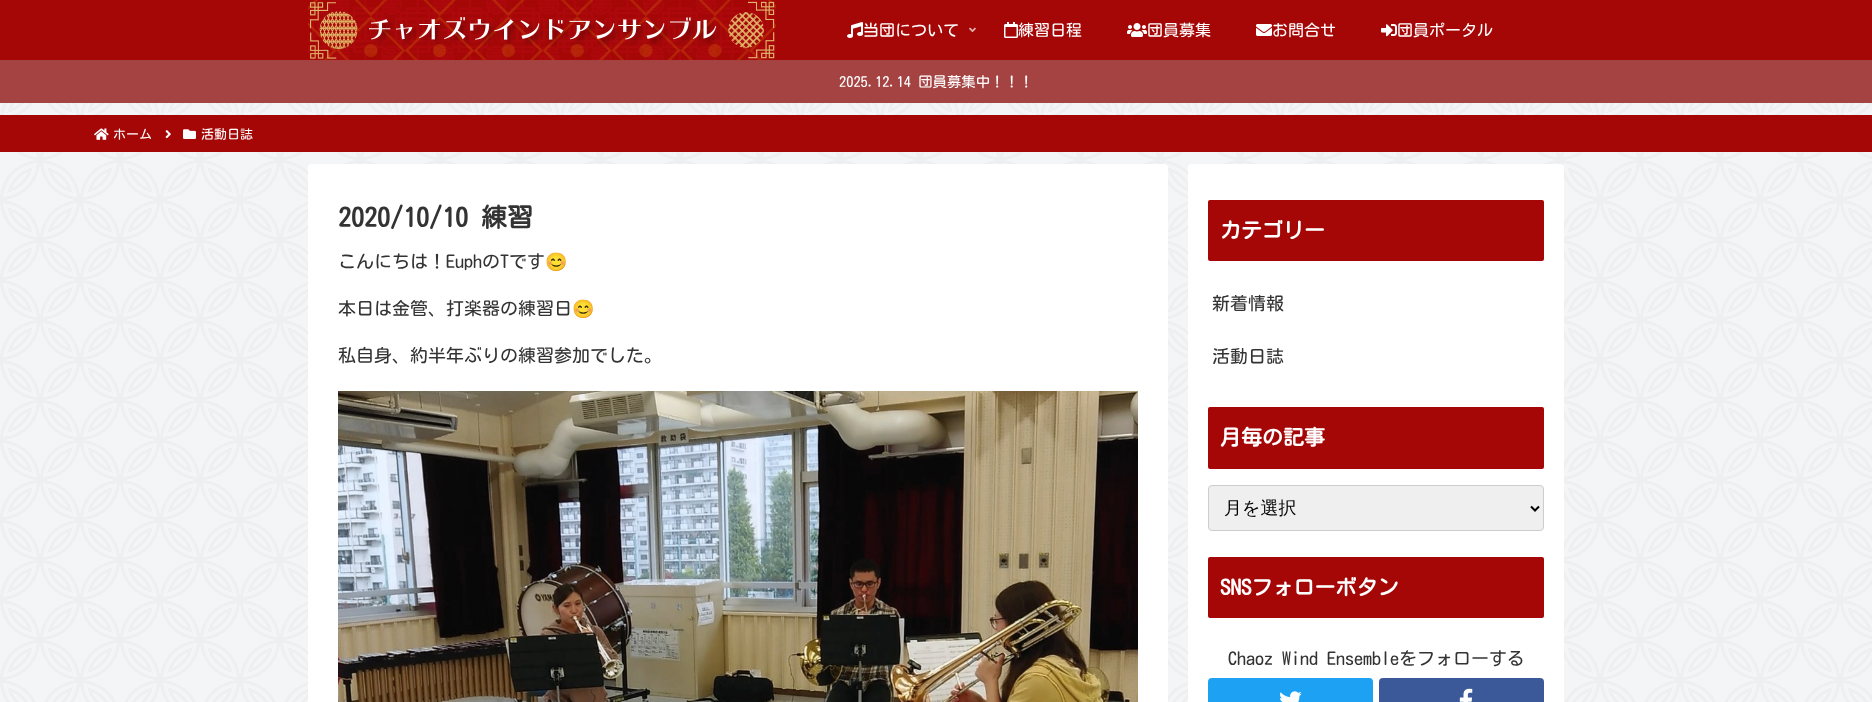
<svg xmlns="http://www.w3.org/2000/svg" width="1872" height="702">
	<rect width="100%" height="100%" fill="#FFFFFF" />
	<image x="0" y="103" width="1872" height="599" href="assets/img1.png" />
	<rect x="0" y="0" width="1872" height="60" fill="#A50707" />
	<image x="308" y="0" width="468" height="60" href="assets/img2.png" />
	<image x="847" y="22" width="16" height="16" href="assets/img3.png" />
	<text x="863" y="36" font-family="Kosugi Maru" font-size="16" fill="#FFFFFF">当団について</text>
	<image x="969" y="27" width="7" height="5" href="assets/img4.png" />
	<image x="1004" y="22" width="14" height="16" href="assets/img5.png" />
	<text x="1018" y="36" font-family="Kosugi Maru" font-size="16" fill="#FFFFFF">練習日程</text>
	<image x="1127" y="23" width="20" height="14" href="assets/img6.png" />
	<text x="1147" y="36" font-family="Kosugi Maru" font-size="16" fill="#FFFFFF">団員募集</text>
	<image x="1256" y="24" width="16" height="12" href="assets/img7.png" />
	<text x="1272" y="36" font-family="Kosugi Maru" font-size="16" fill="#FFFFFF">お問合せ</text>
	<image x="1381" y="24" width="16" height="13" href="assets/img8.png" />
	<text x="1397" y="36" font-family="Kosugi Maru" font-size="16" fill="#FFFFFF">団員ポータル</text>
	<rect x="0" y="60" width="1872" height="43" fill="#A54343" />
	<text x="839" y="87" font-family="Kosugi Maru" font-size="14.4" fill="#FFFFFF">2025.12.14 団員募集中！！！</text>
	<rect x="0" y="115" width="1872" height="37" fill="#A50707" />
	<image x="94" y="128" width="15" height="12" href="assets/img9.png" />
	<text x="113" y="139" font-family="Kosugi Maru" font-size="13" fill="#FFFFFF">ホーム</text>
	<image x="165" y="130" width="6" height="9" href="assets/img10.png" />
	<image x="183" y="129" width="13" height="10" href="assets/img11.png" />
	<text x="201" y="139" font-family="Kosugi Maru" font-size="13" fill="#FFFFFF">活動日誌</text>
	<rect x="308" y="164" width="860" height="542" rx="4" fill="#FFFFFF" />
	<text x="338" y="227" font-family="Kosugi Maru" font-size="26" font-weight="700" fill="#333333">2020/10/10 練習</text>
	<text x="338" y="268" font-family="Kosugi Maru" font-size="18" fill="#333333">こんにちは！EuphのTです</text>
	<text x="545" y="268" font-family="Noto Color Emoji" font-size="18" fill="#333333">😊</text>
	<text x="338" y="315" font-family="Kosugi Maru" font-size="18" fill="#333333">本日は金管、打楽器の練習日</text>
	<text x="572" y="315" font-family="Noto Color Emoji" font-size="18" fill="#333333">😊</text>
	<text x="338" y="362" font-family="Kosugi Maru" font-size="18" fill="#333333">私自身、約半年ぶりの練習参加でした。</text>
	<image x="338" y="391" width="800" height="311" href="assets/img12.png" />
	<rect x="1188" y="164" width="376" height="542" rx="4" fill="#FFFFFF" />
	<rect x="1208" y="200" width="336" height="61" rx="2" fill="#A50707" />
	<text x="1220" y="238" font-family="Kosugi Maru" font-size="21" font-weight="700" fill="#FFFFFF">カテゴリー</text>
	<g font-family="Kosugi Maru" font-size="18" fill="#333333">
		<text x="1212" y="310">新着情報</text>
		<text x="1212" y="363">活動日誌</text>
	</g>
	<rect x="1208" y="407" width="336" height="62" rx="2" fill="#A50707" />
	<text x="1220" y="445" font-family="Kosugi Maru" font-size="21" font-weight="700" fill="#FFFFFF">月毎の記事</text>
	<rect x="1208.5" y="485.5" width="335" height="45" rx="3.5" fill="#EFEFEF" stroke="#CCCCCC" />
	<path d="M1531 506.5L1535 510.5L1539 506.5" fill="none" stroke="#000000" stroke-width="2" />
	<text x="1224" y="514" font-family="WenQuanYi Zen Hei" font-size="18" font-weight="500" fill="#000000">月を選択</text>
	<rect x="1208" y="557" width="336" height="61" rx="2" fill="#A50707" />
	<text x="1220" y="595" font-family="Kosugi Maru" font-size="21" font-weight="700" fill="#FFFFFF">SNSフォローボタン</text>
	<text x="1228" y="665" font-family="Kosugi Maru" font-size="18" fill="#333333">Chaoz Wind Ensembleをフォローする</text>
	<rect x="1208" y="678" width="165" height="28" rx="4" fill="#1DA1F2" />
	<image x="1280" y="691" width="22" height="11" href="assets/img13.png" />
	<rect x="1379" y="678" width="165" height="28" rx="4" fill="#3B5998" />
	<image x="1459" y="688" width="14" height="14" href="assets/img14.png" />
</svg>
